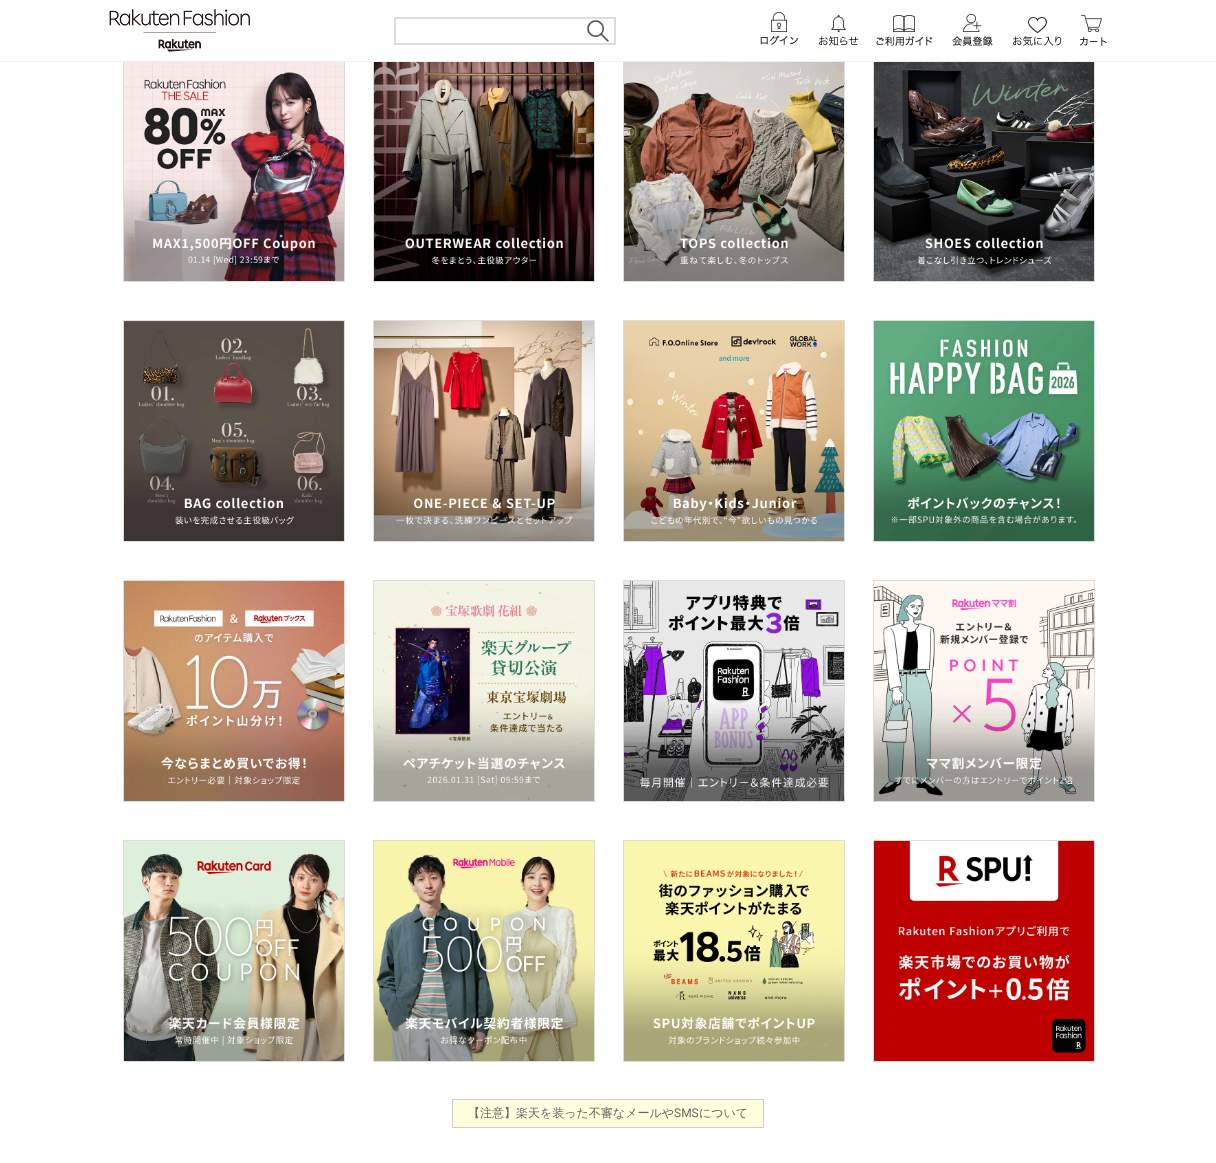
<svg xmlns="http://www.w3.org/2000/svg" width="1216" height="1163">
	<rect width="100%" height="100%" fill="#FFFFFF" />
	<rect x="123.5" y="60.5" width="221" height="221" fill="none" stroke="#DDDDDD" />
	<rect x="373.5" y="60.5" width="221" height="221" fill="none" stroke="#DDDDDD" />
	<rect x="623.5" y="60.5" width="221" height="221" fill="none" stroke="#DDDDDD" />
	<rect x="873.5" y="60.5" width="221" height="221" fill="none" stroke="#DDDDDD" />
	<rect x="123" y="60" width="972" height="1" fill="#FFFFFF" />
	<rect x="0" y="61" width="1216" height="1" fill="#EEEEEE" />
	<image x="109" y="9" width="141" height="43" href="assets/img1.png" />
	<rect x="395" y="18" width="220" height="26" fill="none" stroke="#DDDDDD" stroke-width="2" />
	<image x="586" y="19" width="24" height="24" href="assets/img2.png" />
	<image x="760" y="12" width="38" height="33" href="assets/img3.png" />
	<image x="819" y="15" width="40" height="31" href="assets/img4.png" />
	<image x="876" y="15" width="57" height="31" href="assets/img5.png" />
	<image x="952" y="14" width="41" height="32" href="assets/img6.png" />
	<image x="1013" y="17" width="49" height="29" href="assets/img7.png" />
	<image x="1080" y="15" width="27" height="31" href="assets/img8.png" />
	<image x="124" y="62" width="220" height="219" href="assets/img9.png" />
	<image x="374" y="62" width="220" height="219" href="assets/img10.png" />
	<image x="624" y="62" width="220" height="219" href="assets/img11.png" />
	<image x="874" y="62" width="220" height="219" href="assets/img12.png" />
	<rect x="123.5" y="320.5" width="221" height="221" fill="none" stroke="#DDDDDD" />
	<image x="124" y="321" width="220" height="220" href="assets/img13.png" />
	<rect x="373.5" y="320.5" width="221" height="221" fill="none" stroke="#DDDDDD" />
	<image x="374" y="321" width="220" height="220" href="assets/img14.png" />
	<rect x="623.5" y="320.5" width="221" height="221" fill="none" stroke="#DDDDDD" />
	<image x="624" y="321" width="220" height="220" href="assets/img15.png" />
	<rect x="873.5" y="320.5" width="221" height="221" fill="none" stroke="#DDDDDD" />
	<image x="874" y="321" width="220" height="220" href="assets/img16.png" />
	<rect x="123.5" y="580.5" width="221" height="221" fill="none" stroke="#DDDDDD" />
	<image x="124" y="581" width="220" height="220" href="assets/img17.png" />
	<rect x="373.5" y="580.5" width="221" height="221" fill="none" stroke="#DDDDDD" />
	<image x="374" y="581" width="220" height="220" href="assets/img18.png" />
	<rect x="623.5" y="580.5" width="221" height="221" fill="none" stroke="#DDDDDD" />
	<image x="624" y="581" width="220" height="220" href="assets/img19.png" />
	<rect x="873.5" y="580.5" width="221" height="221" fill="none" stroke="#DDDDDD" />
	<image x="874" y="581" width="220" height="220" href="assets/img20.png" />
	<rect x="123.5" y="840.5" width="221" height="221" fill="none" stroke="#DDDDDD" />
	<image x="124" y="841" width="220" height="220" href="assets/img21.png" />
	<rect x="373.5" y="840.5" width="221" height="221" fill="none" stroke="#DDDDDD" />
	<image x="374" y="841" width="220" height="220" href="assets/img22.png" />
	<rect x="623.5" y="840.5" width="221" height="221" fill="none" stroke="#DDDDDD" />
	<image x="624" y="841" width="220" height="220" href="assets/img23.png" />
	<rect x="873.5" y="840.5" width="221" height="221" fill="none" stroke="#DDDDDD" />
	<image x="874" y="841" width="220" height="220" href="assets/img24.png" />
	<rect x="452.5" y="1099.5" width="311" height="28" fill="#FFFFDD" stroke="#CECECE" />
	<text x="468" y="1117" font-family="WenQuanYi Zen Hei" font-size="12" font-weight="500" fill="#666666">【注意】楽天を装った不審なメールや</text>
	<text x="674" y="1117" font-family="Roboto" font-size="12" fill="#666666">SMS</text>
	<text x="699" y="1117" font-family="WenQuanYi Zen Hei" font-size="12" font-weight="500" fill="#666666">について</text>
</svg>
